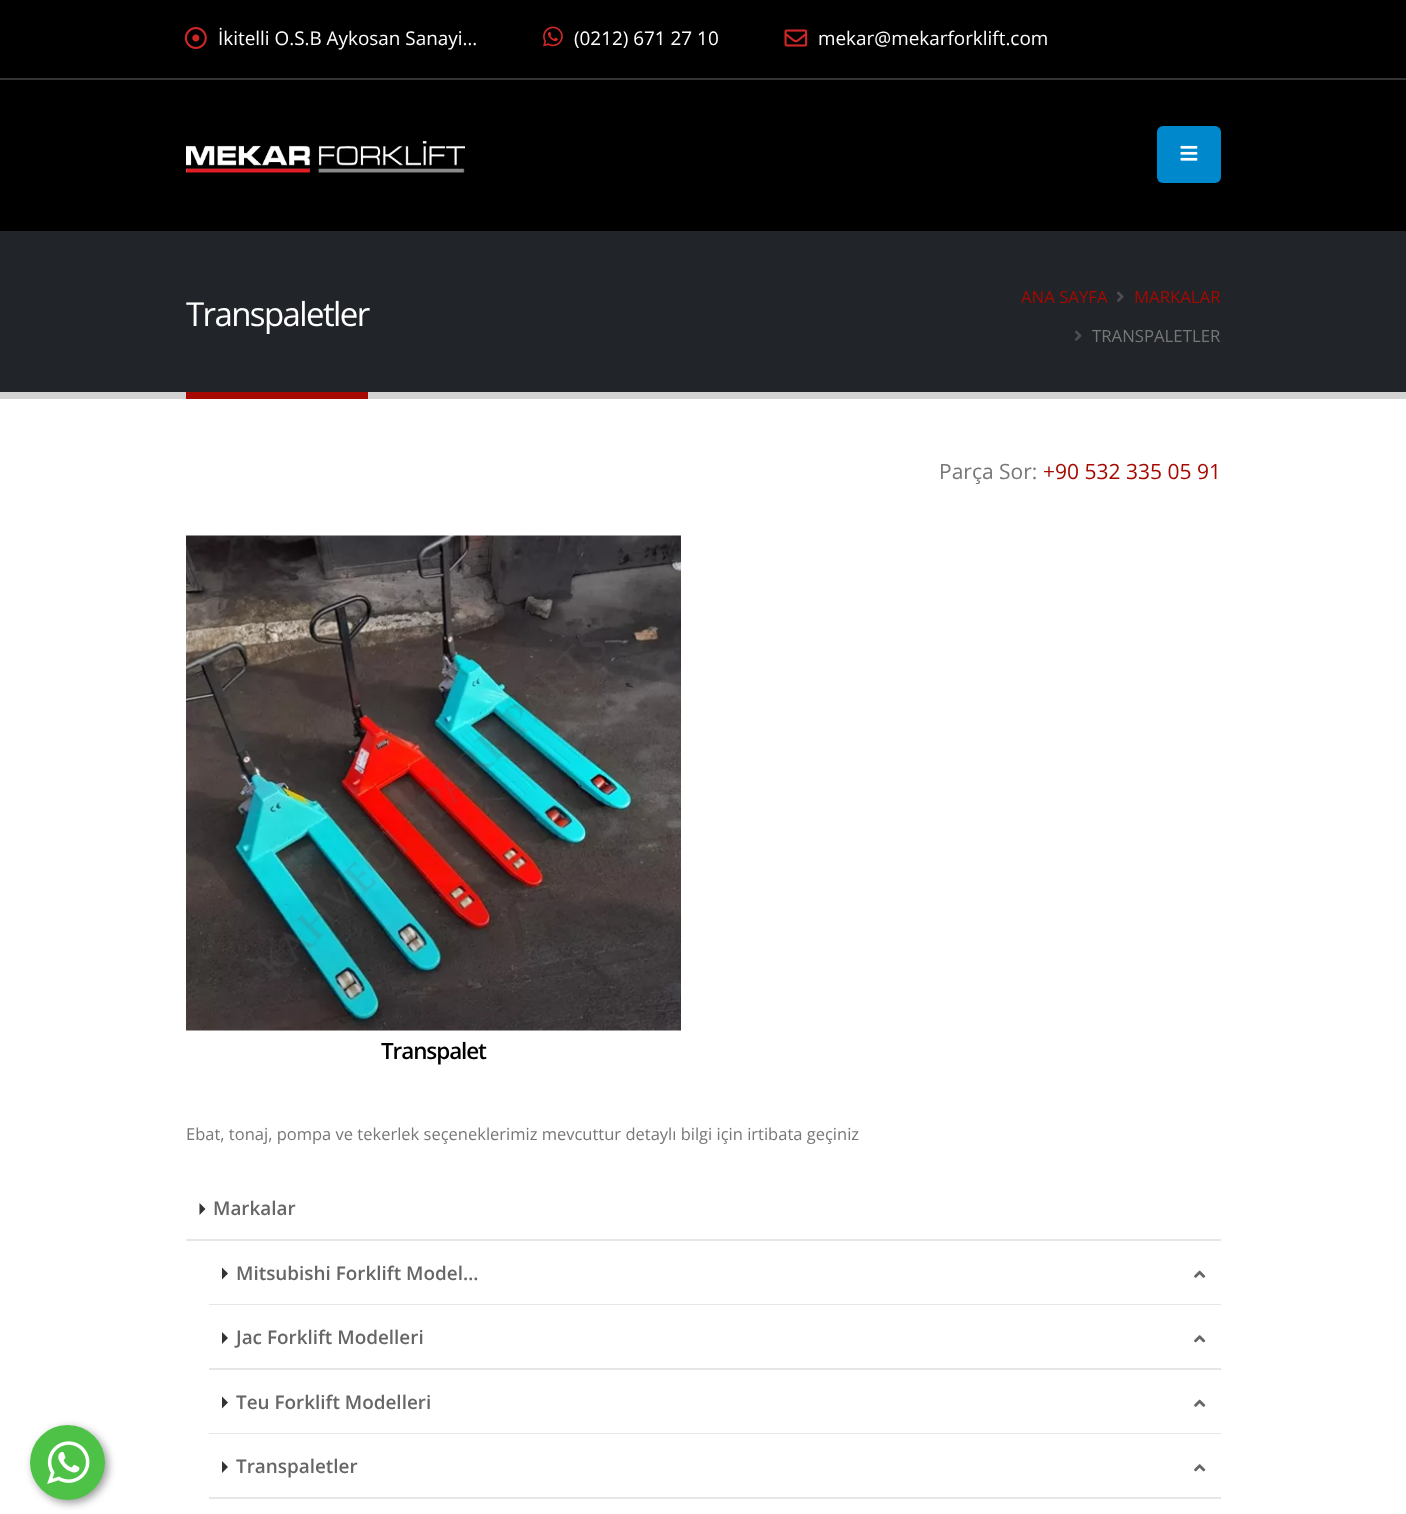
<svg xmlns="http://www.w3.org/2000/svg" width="1406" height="1514">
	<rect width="100%" height="100%" fill="#FFFFFF" />
	<rect x="33" y="1428" width="75" height="75" rx="37.5" fill="#000000" fill-opacity="0.4" filter="blur(4.5px)" />
	<circle cx="67.5" cy="1462.5" r="37.5" fill="#4DC247" />
	<image x="47" y="1441" width="43" height="43" href="assets/img1.png" />
	<rect x="0" y="0" width="1406" height="231" fill="#000000" />
	<rect x="0" y="78" width="1406" height="2" fill="#333333" />
	<image x="184" y="27" width="23" height="22" href="assets/img2.png" />
	<text x="218" y="45" font-family="Open Sans" font-size="18.9" fill="#FFFFFF">İkitelli O.S.B Aykosan Sanayi…</text>
	<image x="543" y="26" width="20" height="21" href="assets/img3.png" />
	<text x="574" y="45" font-family="Open Sans" font-size="18.9" fill="#FFFFFF">(0212) 671 27 10</text>
	<image x="784" y="29" width="24" height="18" href="assets/img4.png" />
	<text x="818" y="45" font-family="Open Sans" font-size="18.9" fill="#FFFFFF">mekar@mekarforklift.com</text>
	<image x="186" y="141" width="279" height="32" href="assets/img5.png" />
	<rect x="1157" y="126" width="64" height="57" rx="6" fill="#0088CC" />
	<image x="1180" y="145" width="18" height="16" href="assets/img6.png" />
	<rect x="0" y="231" width="1406" height="161" fill="#212529" />
	<text x="186" y="326" font-family="Open Sans" font-size="33" letter-spacing="-1.6" fill="#FFFFFF">Transpaletler</text>
	<rect x="0" y="392" width="1406" height="7" fill="#D3D3D4" />
	<rect x="186" y="392" width="182" height="7" fill="#A60900" />
	<text x="1021" y="303" font-family="Open Sans" font-size="16.75" fill="#A60900">ANA SAYFA</text>
	<image x="1117" y="291" width="7" height="11" href="assets/img7.png" />
	<text x="1134" y="303" font-family="Open Sans" font-size="16.75" fill="#A60900">MARKALAR</text>
	<image x="1075" y="330" width="7" height="11" href="assets/img7.png" />
	<text x="1092" y="342" font-family="Open Sans" font-size="16.75" fill="#777777">TRANSPALETLER</text>
	<text x="939" y="479" font-family="Open Sans" font-size="21" fill="#777777">Parça Sor:</text>
	<text x="1043" y="479" font-family="Open Sans" font-size="21" fill="#A60900">+90 532 335 05 91</text>
	<image x="186" y="535" width="495" height="496" href="assets/img8.png" />
	<image x="257" y="630" width="349" height="350" href="assets/img9.png" />
	<text x="381" y="1059" font-family="Open Sans" font-size="22.5" font-weight="600" letter-spacing="-1.1" fill="#000000">Transpalet</text>
	<text x="186" y="1140" font-family="Open Sans" font-size="16.5" fill="#777777">Ebat, tonaj, pompa ve tekerlek seçeneklerimiz mevcuttur detaylı bilgi için irtibata geçiniz</text>
	<rect x="186" y="1239" width="1035" height="2" fill="#E6E6E6" />
	<path d="M199.5 1215V1203L205.5 1209Z" fill="#333333" />
	<text x="213" y="1215" font-family="Open Sans" font-size="18.9" font-weight="600" fill="#666666">Markalar</text>
	<rect x="209" y="1304" width="1012" height="1" fill="#E6E6E6" />
	<path d="M222 1279.5V1267.5L228 1273.5Z" fill="#333333" />
	<text x="236" y="1280" font-family="Open Sans" font-size="18.9" font-weight="600" fill="#666666">Mitsubishi Forklift Model…</text>
	<image x="1194" y="1270" width="12" height="8" href="assets/img10.png" />
	<rect x="209" y="1368" width="1012" height="2" fill="#E6E6E6" />
	<path d="M222 1344V1332L228 1338Z" fill="#333333" />
	<text x="236" y="1344" font-family="Open Sans" font-size="18.9" font-weight="600" fill="#666666">Jac Forklift Modelleri</text>
	<image x="1194" y="1335" width="12" height="8" href="assets/img11.png" />
	<rect x="209" y="1433" width="1012" height="1" fill="#E6E6E6" />
	<path d="M222 1408.5V1396.5L228 1402.5Z" fill="#333333" />
	<text x="236" y="1409" font-family="Open Sans" font-size="18.9" font-weight="600" fill="#666666">Teu Forklift Modelleri</text>
	<image x="1194" y="1399" width="12" height="8" href="assets/img10.png" />
	<rect x="209" y="1497" width="1012" height="2" fill="#E6E6E6" />
	<path d="M222 1473V1461L228 1467Z" fill="#333333" />
	<text x="236" y="1473" font-family="Open Sans" font-size="18.9" font-weight="600" fill="#666666">Transpaletler</text>
	<image x="1194" y="1464" width="12" height="8" href="assets/img11.png" />
</svg>
